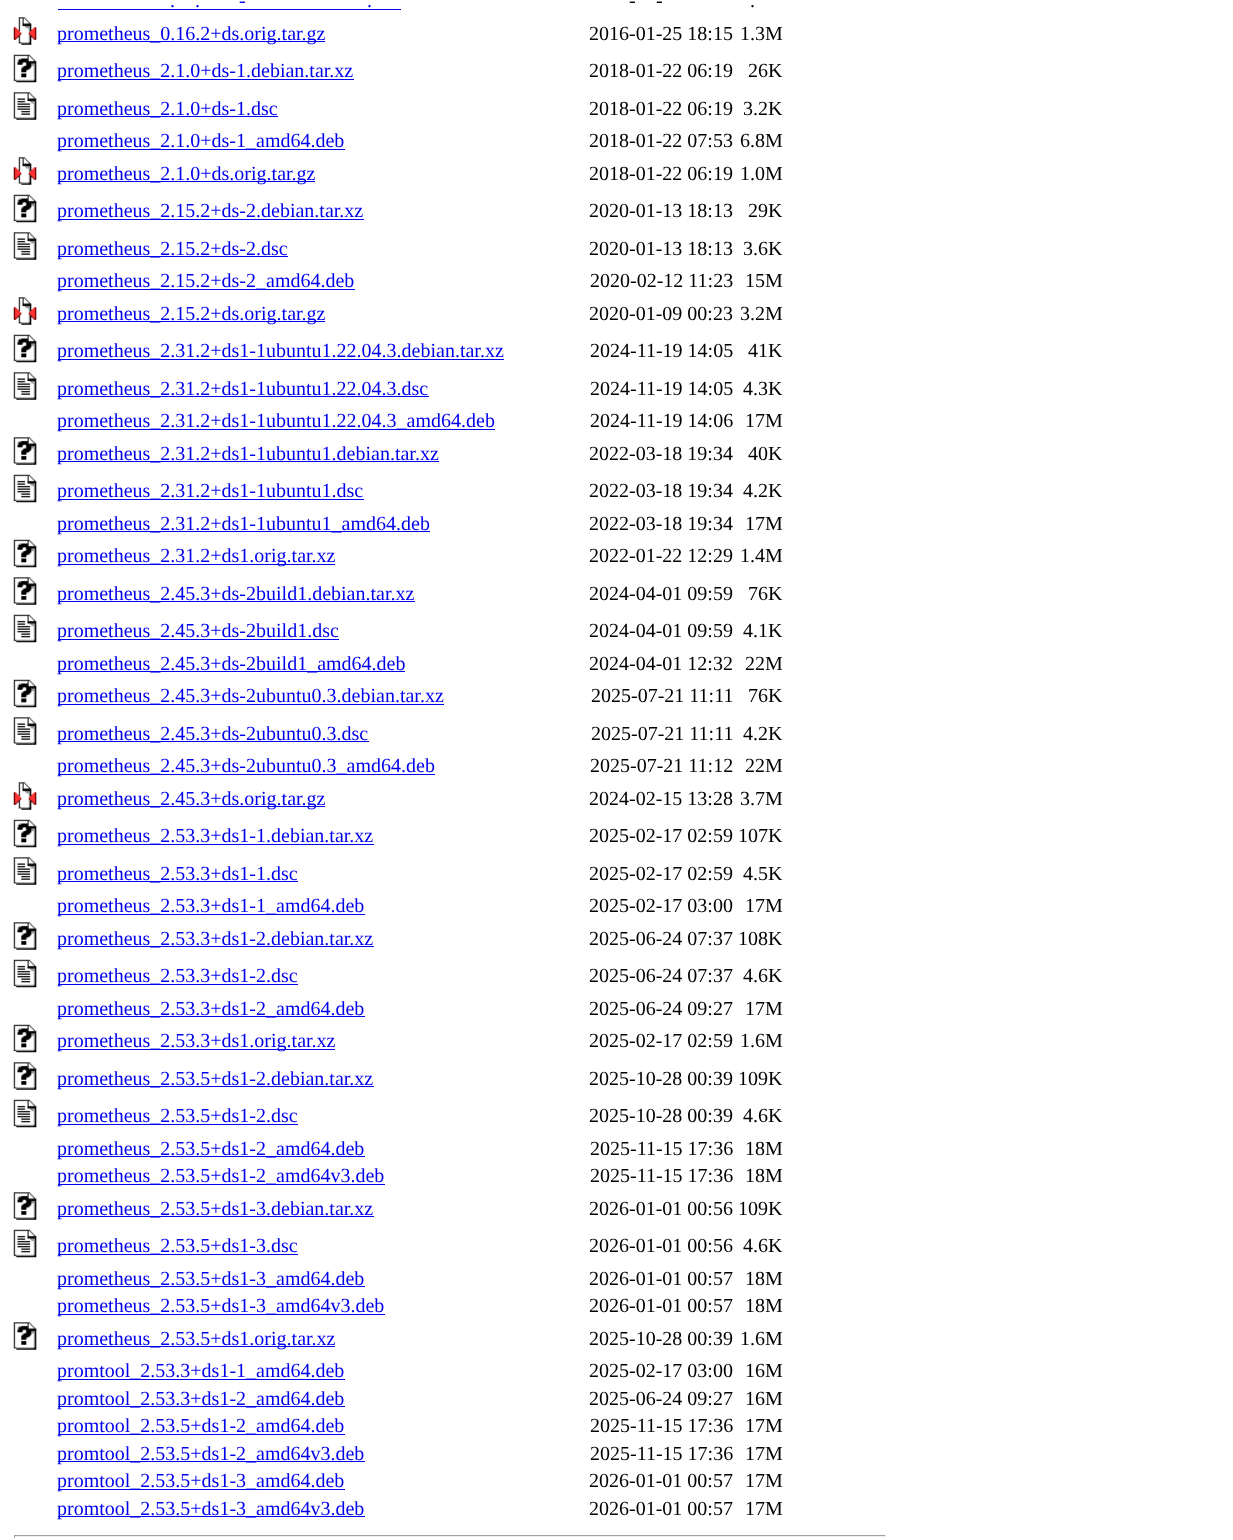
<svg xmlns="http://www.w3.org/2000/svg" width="1233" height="1540">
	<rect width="100%" height="100%" fill="#FFFFFF" />
	<g font-family="Liberation Serif" font-size="20" fill="#0000EE">
		<text x="239" y="7">-</text>
		<text x="170" y="7">.</text>
	</g>
	<rect x="58" y="9" width="343" height="1" fill="#0000EE" />
	<g font-family="Liberation Serif" font-size="20" fill="#0000EE">
		<text x="195" y="7">.</text>
		<text x="367" y="7">.</text>
	</g>
	<g font-family="Liberation Serif" font-size="20" fill="#000000">
		<text x="629" y="7">-</text>
		<text x="656" y="7">-</text>
		<text x="750" y="7">.</text>
	</g>
	<image x="13" y="17" width="24" height="28" href="assets/img1.png" />
	<rect x="58" y="41" width="267" height="1" fill="#0000EE" />
	<text x="57" y="40" font-family="Liberation Serif" font-size="20" fill="#0000EE">prometheus_0.16.2+ds.orig.tar.gz</text>
	<g font-family="Liberation Serif" font-size="20" fill="#000000">
		<text x="589" y="40">2016-01-25 18:15</text>
		<text x="740" y="40">1.3M</text>
	</g>
	<image x="13" y="54" width="24" height="29" href="assets/img2.png" />
	<rect x="58" y="79" width="296" height="1" fill="#0000EE" />
	<text x="57" y="77" font-family="Liberation Serif" font-size="20" fill="#0000EE">prometheus_2.1.0+ds-1.debian.tar.xz</text>
	<g font-family="Liberation Serif" font-size="20" fill="#000000">
		<text x="589" y="77">2018-01-22 06:19</text>
		<text x="748" y="77">26K</text>
	</g>
	<image x="13" y="92" width="24" height="28" href="assets/img3.png" />
	<rect x="58" y="116" width="220" height="1" fill="#0000EE" />
	<text x="57" y="115" font-family="Liberation Serif" font-size="20" fill="#0000EE">prometheus_2.1.0+ds-1.dsc</text>
	<g font-family="Liberation Serif" font-size="20" fill="#000000">
		<text x="589" y="115">2018-01-22 06:19</text>
		<text x="743" y="115">3.2K</text>
	</g>
	<rect x="58" y="149" width="287" height="1" fill="#0000EE" />
	<text x="57" y="147" font-family="Liberation Serif" font-size="20" fill="#0000EE">prometheus_2.1.0+ds-1_amd64.deb</text>
	<g font-family="Liberation Serif" font-size="20" fill="#000000">
		<text x="589" y="147">2018-01-22 07:53</text>
		<text x="740" y="147">6.8M</text>
	</g>
	<image x="13" y="157" width="24" height="28" href="assets/img4.png" />
	<rect x="58" y="181" width="257" height="1" fill="#0000EE" />
	<text x="57" y="180" font-family="Liberation Serif" font-size="20" fill="#0000EE">prometheus_2.1.0+ds.orig.tar.gz</text>
	<g font-family="Liberation Serif" font-size="20" fill="#000000">
		<text x="589" y="180">2018-01-22 06:19</text>
		<text x="740" y="180">1.0M</text>
	</g>
	<image x="13" y="194" width="24" height="29" href="assets/img2.png" />
	<rect x="58" y="219" width="306" height="1" fill="#0000EE" />
	<text x="57" y="217" font-family="Liberation Serif" font-size="20" fill="#0000EE">prometheus_2.15.2+ds-2.debian.tar.xz</text>
	<g font-family="Liberation Serif" font-size="20" fill="#000000">
		<text x="589" y="217">2020-01-13 18:13</text>
		<text x="748" y="217">29K</text>
	</g>
	<image x="13" y="232" width="24" height="28" href="assets/img3.png" />
	<rect x="58" y="256" width="230" height="1" fill="#0000EE" />
	<text x="57" y="255" font-family="Liberation Serif" font-size="20" fill="#0000EE">prometheus_2.15.2+ds-2.dsc</text>
	<g font-family="Liberation Serif" font-size="20" fill="#000000">
		<text x="589" y="255">2020-01-13 18:13</text>
		<text x="743" y="255">3.6K</text>
	</g>
	<rect x="58" y="289" width="297" height="1" fill="#0000EE" />
	<text x="57" y="287" font-family="Liberation Serif" font-size="20" fill="#0000EE">prometheus_2.15.2+ds-2_amd64.deb</text>
	<g font-family="Liberation Serif" font-size="20" fill="#000000">
		<text x="590" y="287">2020-02-12 11:23</text>
		<text x="745" y="287">15M</text>
	</g>
	<image x="13" y="297" width="24" height="28" href="assets/img1.png" />
	<rect x="58" y="321" width="267" height="1" fill="#0000EE" />
	<text x="57" y="320" font-family="Liberation Serif" font-size="20" fill="#0000EE">prometheus_2.15.2+ds.orig.tar.gz</text>
	<g font-family="Liberation Serif" font-size="20" fill="#000000">
		<text x="589" y="320">2020-01-09 00:23</text>
		<text x="740" y="320">3.2M</text>
	</g>
	<image x="13" y="334" width="24" height="29" href="assets/img2.png" />
	<rect x="58" y="359" width="446" height="1" fill="#0000EE" />
	<text x="57" y="357" font-family="Liberation Serif" font-size="20" fill="#0000EE">prometheus_2.31.2+ds1-1ubuntu1.22.04.3.debian.tar.xz</text>
	<g font-family="Liberation Serif" font-size="20" fill="#000000">
		<text x="590" y="357">2024-11-19 14:05</text>
		<text x="748" y="357">41K</text>
	</g>
	<image x="13" y="372" width="24" height="28" href="assets/img3.png" />
	<rect x="58" y="396" width="371" height="1" fill="#0000EE" />
	<text x="57" y="395" font-family="Liberation Serif" font-size="20" fill="#0000EE">prometheus_2.31.2+ds1-1ubuntu1.22.04.3.dsc</text>
	<g font-family="Liberation Serif" font-size="20" fill="#000000">
		<text x="590" y="395">2024-11-19 14:05</text>
		<text x="743" y="395">4.3K</text>
	</g>
	<rect x="58" y="429" width="437" height="1" fill="#0000EE" />
	<text x="57" y="427" font-family="Liberation Serif" font-size="20" fill="#0000EE">prometheus_2.31.2+ds1-1ubuntu1.22.04.3_amd64.deb</text>
	<g font-family="Liberation Serif" font-size="20" fill="#000000">
		<text x="590" y="427">2024-11-19 14:06</text>
		<text x="745" y="427">17M</text>
	</g>
	<image x="13" y="437" width="24" height="28" href="assets/img5.png" />
	<rect x="58" y="461" width="381" height="1" fill="#0000EE" />
	<text x="57" y="460" font-family="Liberation Serif" font-size="20" fill="#0000EE">prometheus_2.31.2+ds1-1ubuntu1.debian.tar.xz</text>
	<g font-family="Liberation Serif" font-size="20" fill="#000000">
		<text x="589" y="460">2022-03-18 19:34</text>
		<text x="748" y="460">40K</text>
	</g>
	<image x="13" y="474" width="24" height="29" href="assets/img6.png" />
	<rect x="58" y="499" width="306" height="1" fill="#0000EE" />
	<text x="57" y="497" font-family="Liberation Serif" font-size="20" fill="#0000EE">prometheus_2.31.2+ds1-1ubuntu1.dsc</text>
	<g font-family="Liberation Serif" font-size="20" fill="#000000">
		<text x="589" y="497">2022-03-18 19:34</text>
		<text x="743" y="497">4.2K</text>
	</g>
	<rect x="58" y="531" width="372" height="1" fill="#0000EE" />
	<text x="57" y="530" font-family="Liberation Serif" font-size="20" fill="#0000EE">prometheus_2.31.2+ds1-1ubuntu1_amd64.deb</text>
	<g font-family="Liberation Serif" font-size="20" fill="#000000">
		<text x="589" y="530">2022-03-18 19:34</text>
		<text x="745" y="530">17M</text>
	</g>
	<image x="13" y="539" width="24" height="29" href="assets/img2.png" />
	<rect x="58" y="564" width="277" height="1" fill="#0000EE" />
	<text x="57" y="562" font-family="Liberation Serif" font-size="20" fill="#0000EE">prometheus_2.31.2+ds1.orig.tar.xz</text>
	<g font-family="Liberation Serif" font-size="20" fill="#000000">
		<text x="589" y="562">2022-01-22 12:29</text>
		<text x="740" y="562">1.4M</text>
	</g>
	<image x="13" y="577" width="24" height="28" href="assets/img5.png" />
	<rect x="58" y="601" width="357" height="1" fill="#0000EE" />
	<text x="57" y="600" font-family="Liberation Serif" font-size="20" fill="#0000EE">prometheus_2.45.3+ds-2build1.debian.tar.xz</text>
	<g font-family="Liberation Serif" font-size="20" fill="#000000">
		<text x="589" y="600">2024-04-01 09:59</text>
		<text x="748" y="600">76K</text>
	</g>
	<image x="13" y="614" width="24" height="29" href="assets/img6.png" />
	<rect x="58" y="639" width="281" height="1" fill="#0000EE" />
	<text x="57" y="637" font-family="Liberation Serif" font-size="20" fill="#0000EE">prometheus_2.45.3+ds-2build1.dsc</text>
	<g font-family="Liberation Serif" font-size="20" fill="#000000">
		<text x="589" y="637">2024-04-01 09:59</text>
		<text x="743" y="637">4.1K</text>
	</g>
	<rect x="58" y="671" width="347" height="1" fill="#0000EE" />
	<text x="57" y="670" font-family="Liberation Serif" font-size="20" fill="#0000EE">prometheus_2.45.3+ds-2build1_amd64.deb</text>
	<g font-family="Liberation Serif" font-size="20" fill="#000000">
		<text x="589" y="670">2024-04-01 12:32</text>
		<text x="745" y="670">22M</text>
	</g>
	<image x="13" y="679" width="24" height="29" href="assets/img2.png" />
	<rect x="58" y="704" width="386" height="1" fill="#0000EE" />
	<text x="57" y="702" font-family="Liberation Serif" font-size="20" fill="#0000EE">prometheus_2.45.3+ds-2ubuntu0.3.debian.tar.xz</text>
	<g font-family="Liberation Serif" font-size="20" fill="#000000">
		<text x="591" y="702">2025-07-21 11:11</text>
		<text x="748" y="702">76K</text>
	</g>
	<image x="13" y="717" width="24" height="28" href="assets/img3.png" />
	<rect x="58" y="741" width="311" height="1" fill="#0000EE" />
	<text x="57" y="740" font-family="Liberation Serif" font-size="20" fill="#0000EE">prometheus_2.45.3+ds-2ubuntu0.3.dsc</text>
	<g font-family="Liberation Serif" font-size="20" fill="#000000">
		<text x="591" y="740">2025-07-21 11:11</text>
		<text x="743" y="740">4.2K</text>
	</g>
	<rect x="58" y="774" width="377" height="1" fill="#0000EE" />
	<text x="57" y="772" font-family="Liberation Serif" font-size="20" fill="#0000EE">prometheus_2.45.3+ds-2ubuntu0.3_amd64.deb</text>
	<g font-family="Liberation Serif" font-size="20" fill="#000000">
		<text x="590" y="772">2025-07-21 11:12</text>
		<text x="745" y="772">22M</text>
	</g>
	<image x="13" y="782" width="24" height="28" href="assets/img1.png" />
	<rect x="58" y="806" width="267" height="1" fill="#0000EE" />
	<text x="57" y="805" font-family="Liberation Serif" font-size="20" fill="#0000EE">prometheus_2.45.3+ds.orig.tar.gz</text>
	<g font-family="Liberation Serif" font-size="20" fill="#000000">
		<text x="589" y="805">2024-02-15 13:28</text>
		<text x="740" y="805">3.7M</text>
	</g>
	<image x="13" y="819" width="24" height="29" href="assets/img2.png" />
	<rect x="58" y="844" width="316" height="1" fill="#0000EE" />
	<text x="57" y="842" font-family="Liberation Serif" font-size="20" fill="#0000EE">prometheus_2.53.3+ds1-1.debian.tar.xz</text>
	<text x="589" y="842" font-family="Liberation Serif" font-size="20" fill="#000000">2025-02-17 02:59 107K</text>
	<image x="13" y="857" width="24" height="28" href="assets/img3.png" />
	<rect x="58" y="881" width="240" height="1" fill="#0000EE" />
	<text x="57" y="880" font-family="Liberation Serif" font-size="20" fill="#0000EE">prometheus_2.53.3+ds1-1.dsc</text>
	<g font-family="Liberation Serif" font-size="20" fill="#000000">
		<text x="589" y="880">2025-02-17 02:59</text>
		<text x="743" y="880">4.5K</text>
	</g>
	<rect x="58" y="914" width="307" height="1" fill="#0000EE" />
	<text x="57" y="912" font-family="Liberation Serif" font-size="20" fill="#0000EE">prometheus_2.53.3+ds1-1_amd64.deb</text>
	<g font-family="Liberation Serif" font-size="20" fill="#000000">
		<text x="589" y="912">2025-02-17 03:00</text>
		<text x="745" y="912">17M</text>
	</g>
	<image x="13" y="922" width="24" height="28" href="assets/img5.png" />
	<rect x="58" y="946" width="316" height="1" fill="#0000EE" />
	<text x="57" y="945" font-family="Liberation Serif" font-size="20" fill="#0000EE">prometheus_2.53.3+ds1-2.debian.tar.xz</text>
	<text x="589" y="945" font-family="Liberation Serif" font-size="20" fill="#000000">2025-06-24 07:37 108K</text>
	<image x="13" y="959" width="24" height="29" href="assets/img6.png" />
	<rect x="58" y="984" width="240" height="1" fill="#0000EE" />
	<text x="57" y="982" font-family="Liberation Serif" font-size="20" fill="#0000EE">prometheus_2.53.3+ds1-2.dsc</text>
	<g font-family="Liberation Serif" font-size="20" fill="#000000">
		<text x="589" y="982">2025-06-24 07:37</text>
		<text x="743" y="982">4.6K</text>
	</g>
	<rect x="58" y="1016" width="307" height="1" fill="#0000EE" />
	<text x="57" y="1015" font-family="Liberation Serif" font-size="20" fill="#0000EE">prometheus_2.53.3+ds1-2_amd64.deb</text>
	<g font-family="Liberation Serif" font-size="20" fill="#000000">
		<text x="589" y="1015">2025-06-24 09:27</text>
		<text x="745" y="1015">17M</text>
	</g>
	<image x="13" y="1024" width="24" height="29" href="assets/img2.png" />
	<rect x="58" y="1049" width="277" height="1" fill="#0000EE" />
	<text x="57" y="1047" font-family="Liberation Serif" font-size="20" fill="#0000EE">prometheus_2.53.3+ds1.orig.tar.xz</text>
	<g font-family="Liberation Serif" font-size="20" fill="#000000">
		<text x="589" y="1047">2025-02-17 02:59</text>
		<text x="740" y="1047">1.6M</text>
	</g>
	<image x="13" y="1062" width="24" height="28" href="assets/img5.png" />
	<rect x="58" y="1086" width="316" height="1" fill="#0000EE" />
	<text x="57" y="1085" font-family="Liberation Serif" font-size="20" fill="#0000EE">prometheus_2.53.5+ds1-2.debian.tar.xz</text>
	<text x="589" y="1085" font-family="Liberation Serif" font-size="20" fill="#000000">2025-10-28 00:39 109K</text>
	<image x="13" y="1099" width="24" height="29" href="assets/img6.png" />
	<rect x="58" y="1124" width="240" height="1" fill="#0000EE" />
	<text x="57" y="1122" font-family="Liberation Serif" font-size="20" fill="#0000EE">prometheus_2.53.5+ds1-2.dsc</text>
	<g font-family="Liberation Serif" font-size="20" fill="#000000">
		<text x="589" y="1122">2025-10-28 00:39</text>
		<text x="743" y="1122">4.6K</text>
	</g>
	<rect x="58" y="1156" width="307" height="1" fill="#0000EE" />
	<text x="57" y="1155" font-family="Liberation Serif" font-size="20" fill="#0000EE">prometheus_2.53.5+ds1-2_amd64.deb</text>
	<g font-family="Liberation Serif" font-size="20" fill="#000000">
		<text x="590" y="1155">2025-11-15 17:36</text>
		<text x="745" y="1155">18M</text>
	</g>
	<rect x="58" y="1184" width="327" height="1" fill="#0000EE" />
	<text x="57" y="1182" font-family="Liberation Serif" font-size="20" fill="#0000EE">prometheus_2.53.5+ds1-2_amd64v3.deb</text>
	<g font-family="Liberation Serif" font-size="20" fill="#000000">
		<text x="590" y="1182">2025-11-15 17:36</text>
		<text x="745" y="1182">18M</text>
	</g>
	<image x="13" y="1192" width="24" height="28" href="assets/img5.png" />
	<rect x="58" y="1216" width="316" height="1" fill="#0000EE" />
	<text x="57" y="1215" font-family="Liberation Serif" font-size="20" fill="#0000EE">prometheus_2.53.5+ds1-3.debian.tar.xz</text>
	<text x="589" y="1215" font-family="Liberation Serif" font-size="20" fill="#000000">2026-01-01 00:56 109K</text>
	<image x="13" y="1229" width="24" height="29" href="assets/img6.png" />
	<rect x="58" y="1254" width="240" height="1" fill="#0000EE" />
	<text x="57" y="1252" font-family="Liberation Serif" font-size="20" fill="#0000EE">prometheus_2.53.5+ds1-3.dsc</text>
	<g font-family="Liberation Serif" font-size="20" fill="#000000">
		<text x="589" y="1252">2026-01-01 00:56</text>
		<text x="743" y="1252">4.6K</text>
	</g>
	<rect x="58" y="1286" width="307" height="1" fill="#0000EE" />
	<text x="57" y="1285" font-family="Liberation Serif" font-size="20" fill="#0000EE">prometheus_2.53.5+ds1-3_amd64.deb</text>
	<g font-family="Liberation Serif" font-size="20" fill="#000000">
		<text x="589" y="1285">2026-01-01 00:57</text>
		<text x="745" y="1285">18M</text>
	</g>
	<rect x="58" y="1314" width="327" height="1" fill="#0000EE" />
	<text x="57" y="1312" font-family="Liberation Serif" font-size="20" fill="#0000EE">prometheus_2.53.5+ds1-3_amd64v3.deb</text>
	<g font-family="Liberation Serif" font-size="20" fill="#000000">
		<text x="589" y="1312">2026-01-01 00:57</text>
		<text x="745" y="1312">18M</text>
	</g>
	<image x="13" y="1322" width="24" height="28" href="assets/img5.png" />
	<rect x="58" y="1346" width="277" height="1" fill="#0000EE" />
	<text x="57" y="1345" font-family="Liberation Serif" font-size="20" fill="#0000EE">prometheus_2.53.5+ds1.orig.tar.xz</text>
	<g font-family="Liberation Serif" font-size="20" fill="#000000">
		<text x="589" y="1345">2025-10-28 00:39</text>
		<text x="740" y="1345">1.6M</text>
	</g>
	<rect x="58" y="1379" width="287" height="1" fill="#0000EE" />
	<text x="57" y="1377" font-family="Liberation Serif" font-size="20" fill="#0000EE">promtool_2.53.3+ds1-1_amd64.deb</text>
	<g font-family="Liberation Serif" font-size="20" fill="#000000">
		<text x="589" y="1377">2025-02-17 03:00</text>
		<text x="745" y="1377">16M</text>
	</g>
	<rect x="58" y="1406" width="287" height="1" fill="#0000EE" />
	<text x="57" y="1405" font-family="Liberation Serif" font-size="20" fill="#0000EE">promtool_2.53.3+ds1-2_amd64.deb</text>
	<g font-family="Liberation Serif" font-size="20" fill="#000000">
		<text x="589" y="1405">2025-06-24 09:27</text>
		<text x="745" y="1405">16M</text>
	</g>
	<rect x="58" y="1434" width="287" height="1" fill="#0000EE" />
	<text x="57" y="1432" font-family="Liberation Serif" font-size="20" fill="#0000EE">promtool_2.53.5+ds1-2_amd64.deb</text>
	<g font-family="Liberation Serif" font-size="20" fill="#000000">
		<text x="590" y="1432">2025-11-15 17:36</text>
		<text x="745" y="1432">17M</text>
	</g>
	<rect x="58" y="1461" width="307" height="1" fill="#0000EE" />
	<text x="57" y="1460" font-family="Liberation Serif" font-size="20" fill="#0000EE">promtool_2.53.5+ds1-2_amd64v3.deb</text>
	<g font-family="Liberation Serif" font-size="20" fill="#000000">
		<text x="590" y="1460">2025-11-15 17:36</text>
		<text x="745" y="1460">17M</text>
	</g>
	<rect x="58" y="1489" width="287" height="1" fill="#0000EE" />
	<text x="57" y="1487" font-family="Liberation Serif" font-size="20" fill="#0000EE">promtool_2.53.5+ds1-3_amd64.deb</text>
	<g font-family="Liberation Serif" font-size="20" fill="#000000">
		<text x="589" y="1487">2026-01-01 00:57</text>
		<text x="745" y="1487">17M</text>
	</g>
	<rect x="58" y="1516" width="307" height="1" fill="#0000EE" />
	<text x="57" y="1515" font-family="Liberation Serif" font-size="20" fill="#0000EE">promtool_2.53.5+ds1-3_amd64v3.deb</text>
	<g font-family="Liberation Serif" font-size="20" fill="#000000">
		<text x="589" y="1515">2026-01-01 00:57</text>
		<text x="745" y="1515">17M</text>
	</g>
	<rect x="14" y="1535" width="872" height="1" fill="#9F9F9F" />
	<rect x="885" y="1535" width="1" height="3" fill="#EEEEEE" />
	<rect x="14" y="1536" width="872" height="1" fill="#EEEEEE" />
	<rect x="14" y="1535" width="1" height="3" fill="#9F9F9F" />
</svg>
